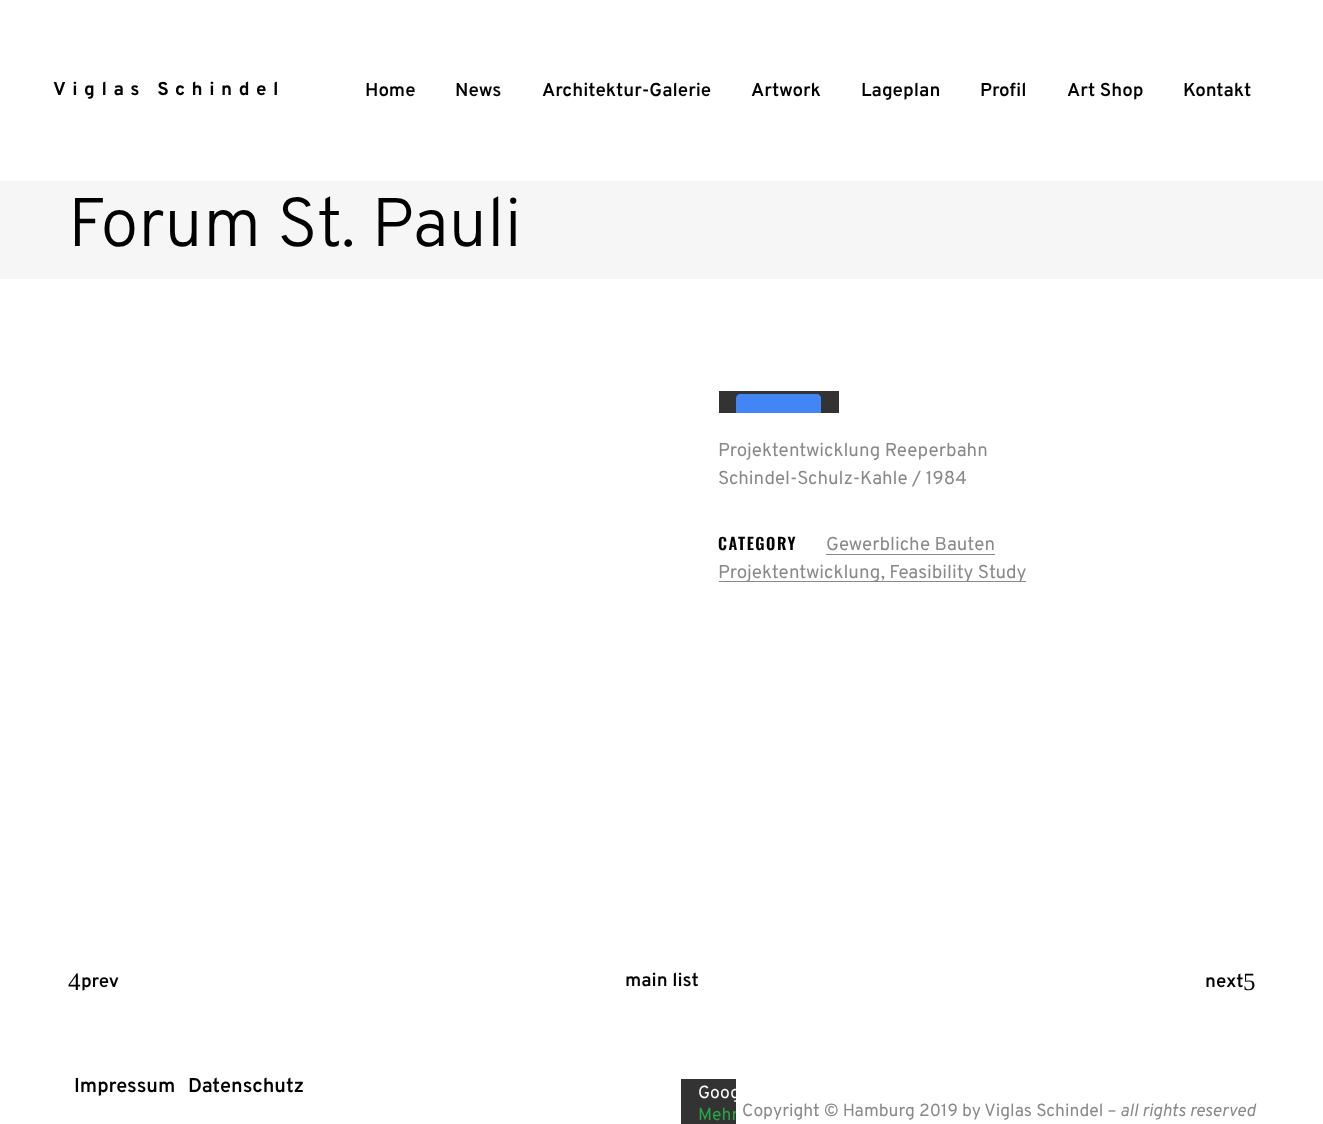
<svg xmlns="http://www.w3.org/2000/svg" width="1323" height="1124">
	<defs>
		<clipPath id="clip1"><rect x="681" y="1079" width="55" height="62" /></clipPath>
	</defs>
	<rect width="100%" height="100%" fill="#FFFFFF" />
	<text x="53" y="95" font-family="Overpass" font-size="18.75" font-weight="700" letter-spacing="6.5" fill="#000000">Viglas Schindel</text>
	<g font-family="Overpass" font-size="18.75" font-weight="600" fill="#000000">
		<text x="365" y="96">Home</text>
		<text x="455" y="96">News</text>
		<text x="542" y="96">Architektur-Galerie</text>
		<text x="751" y="96">Artwork</text>
		<text x="861" y="96">Lageplan</text>
		<text x="980" y="96">Profil</text>
		<text x="1067" y="96">Art Shop</text>
		<text x="1183" y="96">Kontakt</text>
	</g>
	<rect x="0" y="181" width="1323" height="98" fill="#F6F6F6" />
	<text x="68" y="246" font-family="Overpass" font-size="68.75" font-weight="300" fill="#000000">Forum St. Pauli</text>
	<rect x="719" y="391" width="120" height="22" fill="#333333" />
	<path d="M740 394H817C819 394 821 396 821 398V413H736V398C736 396 738 394 740 394Z" fill="#4285F4" />
	<g font-family="Overpass" font-size="18.75" fill="#898989">
		<text x="718" y="456">Projektentwicklung Reeperbahn</text>
		<text x="718" y="484">Schindel-Schulz-Kahle / 1984</text>
	</g>
	<text x="718" y="550" font-family="Oswald" font-size="16.25" font-weight="600" letter-spacing="1.5" fill="#000000">CATEGORY</text>
	<text x="826" y="550" font-family="Overpass" font-size="18.75" fill="#898989">Gewerbliche Bauten</text>
	<rect x="826" y="554" width="169" height="1" fill="#898989" />
	<text x="718" y="578" font-family="Overpass" font-size="18.75" fill="#898989">Projektentwicklung, Feasibility Study</text>
	<rect x="719" y="581" width="307" height="1" fill="#898989" />
	<text x="68" y="990" font-family="Liberation Serif" font-size="25" fill="#000000">4</text>
	<g font-family="Overpass" font-size="18.75" font-weight="600" fill="#000000">
		<text x="81" y="987">prev</text>
		<text x="625" y="986">main list</text>
		<text x="1205" y="987">next</text>
	</g>
	<text x="1243" y="990" font-family="Liberation Serif" font-size="25" fill="#000000">5</text>
	<g font-family="Overpass" font-size="20" font-weight="600" fill="#000000">
		<text x="74" y="1092">Impressum</text>
		<text x="188" y="1092">Datenschutz</text>
	</g>
	<rect x="681" y="1079" width="55" height="45" fill="#333333" />
	<g clip-path="url(#clip1)">
		<text x="698" y="1098" font-family="Overpass" font-size="17.5" fill="#FFFFFF">Goog</text>
		<text x="698" y="1120" font-family="Overpass" font-size="17.5" fill="#28A745">Mehr</text>
	</g>
	<text x="742" y="1116" font-family="Overpass" font-size="17.5" fill="#898989">Copyright © Hamburg 2019 by Viglas Schindel –</text>
	<text x="1120" y="1116" font-family="Overpass" font-size="17.5" font-style="italic" fill="#898989">all rights reserved</text>
</svg>
